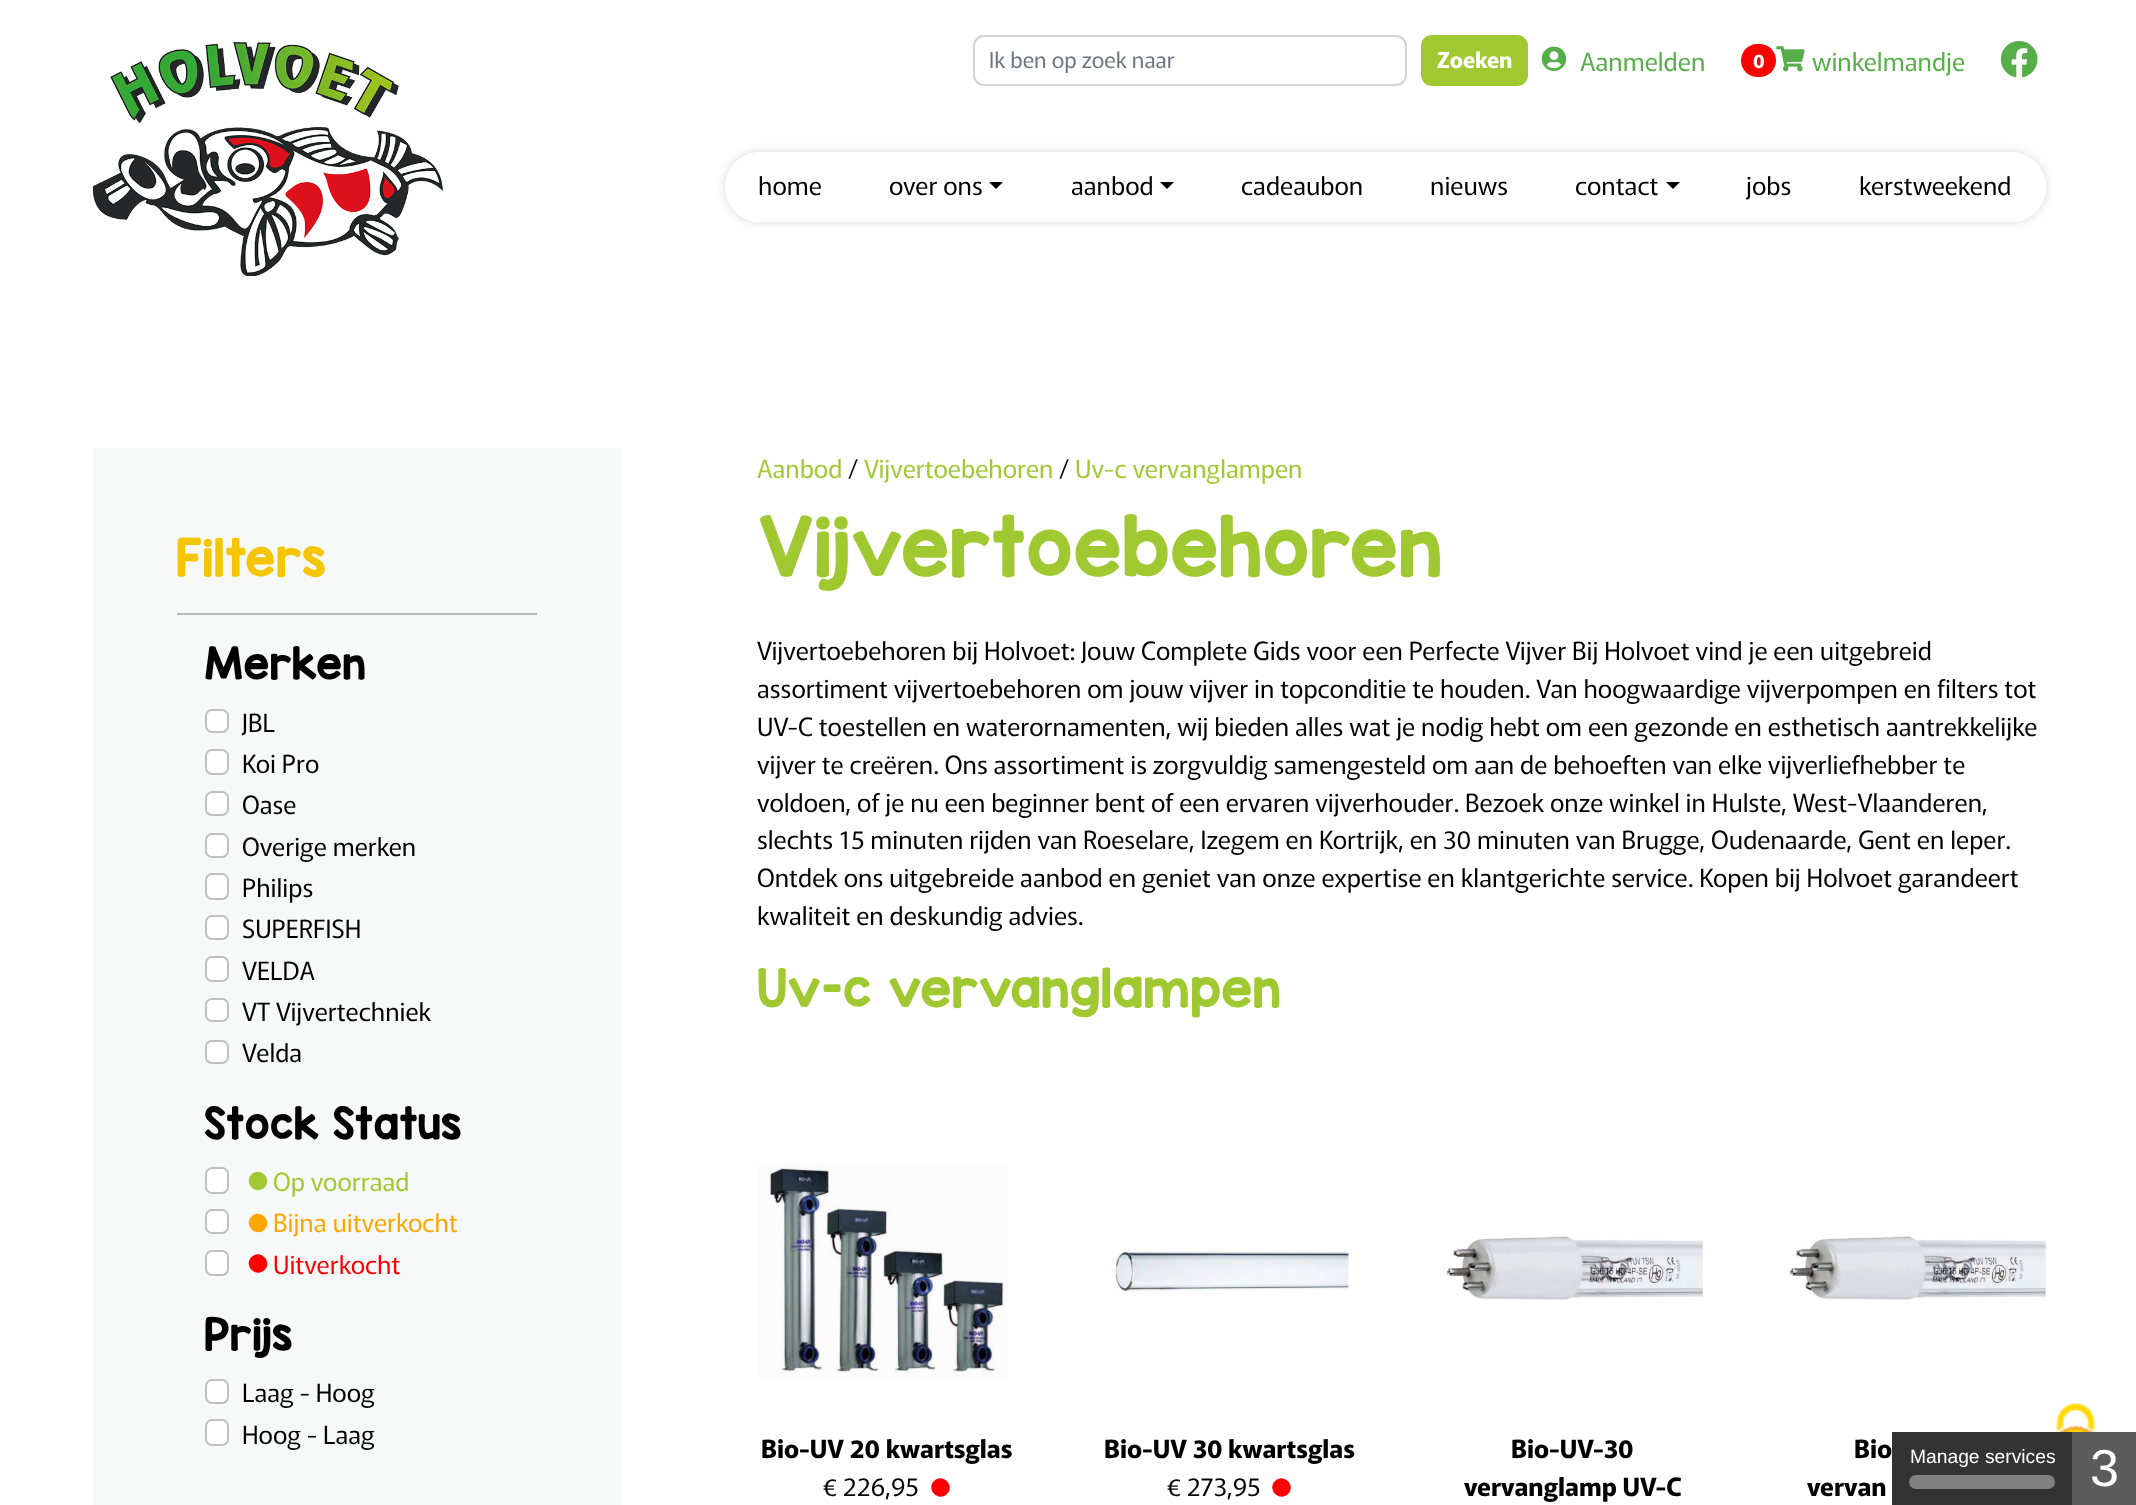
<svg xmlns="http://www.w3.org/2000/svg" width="2136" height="1505">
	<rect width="100%" height="100%" fill="#FFFFFF" />
	<rect x="974" y="36" width="432" height="49" rx="10" fill="none" stroke="#CED4DA" stroke-width="2" />
	<text x="989" y="68" font-family="Murecho" font-size="22" fill="#6C757D">Ik ben op zoek naar</text>
	<rect x="1422" y="36" width="105" height="49" rx="10" fill="#9FC831" stroke="#9FC831" stroke-width="2" />
	<text x="1437" y="68" font-family="Murecho" font-size="22" font-weight="700" fill="#FFFFFF">Zoeken</text>
	<image x="1541" y="46" width="26" height="25" href="assets/img1.png" />
	<text x="1580" y="71" font-family="Murecho" font-size="25.2" fill="#55AE48">Aanmelden</text>
	<rect x="1741" y="44" width="35" height="33" rx="16.5" fill="#FF0000" />
	<text x="1753" y="68" font-family="Murecho" font-size="19" font-weight="700" fill="#FFFFFF">0</text>
	<image x="1776" y="46" width="29" height="26" href="assets/img2.png" />
	<text x="1812" y="71" font-family="Murecho" font-size="25.2" fill="#55AE48">winkelmandje</text>
	<image x="2000" y="41" width="38" height="37" href="assets/img3.png" />
	<image x="92" y="42" width="351" height="234" href="assets/img4.png" />
	<rect x="725" y="152" width="1321" height="70" rx="35" fill="#000000" fill-opacity="0.16" filter="blur(5px)" />
	<rect x="725" y="152" width="1321" height="70" rx="35" fill="#FFFFFF" />
	<path d="M760 152H856V222H760C740.5 222 725 206.5 725 187C725 167.5 740.5 152 760 152Z" fill="#FFFFFF" />
	<g font-family="Murecho" font-size="25.2" fill="#010101">
		<text x="758" y="195">home</text>
		<text x="889" y="195">over ons</text>
	</g>
	<path d="M989 182H1003L996 189Z" fill="#010101" />
	<text x="1071" y="195" font-family="Murecho" font-size="25.2" fill="#010101">aanbod</text>
	<path d="M1160 182H1174L1167 189Z" fill="#010101" />
	<g font-family="Murecho" font-size="25.2" fill="#010101">
		<text x="1241" y="195">cadeaubon</text>
		<text x="1430" y="195">nieuws</text>
		<text x="1575" y="195">contact</text>
	</g>
	<path d="M1666 182H1680L1673 189Z" fill="#010101" />
	<text x="1746" y="195" font-family="Murecho" font-size="25.2" fill="#010101">jobs</text>
	<path d="M1825 152H2011C2030.5 152 2046 167.5 2046 187C2046 206.5 2030.5 222 2011 222H1825Z" fill="#FFFFFF" />
	<text x="1859" y="195" font-family="Murecho" font-size="25.2" fill="#010101">kerstweekend</text>
	<rect x="93" y="448" width="528" height="1057" fill="#F7F8F8" />
	<text x="176" y="576" font-family="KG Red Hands" font-size="44" fill="#F5C500">Filters</text>
	<rect x="177" y="613" width="360" height="2" fill="#BABABA" />
	<text x="204" y="679" font-family="KG Red Hands" font-size="37.75" fill="#010101">Merken</text>
	<rect x="205" y="709" width="24" height="24" rx="7" fill="#FFFFFF" />
	<rect x="206" y="710" width="22" height="22" rx="6" fill="none" stroke="#010101" stroke-opacity="0.25" stroke-width="2" />
	<text x="242" y="732" font-family="Murecho" font-size="25.2" fill="#010101">JBL</text>
	<rect x="205" y="749" width="24" height="26" rx="7" fill="#FFFFFF" />
	<rect x="206" y="750" width="22" height="24" rx="6" fill="none" stroke="#010101" stroke-opacity="0.25" stroke-width="2" />
	<text x="242" y="773" font-family="Murecho" font-size="25.2" fill="#010101">Koi Pro</text>
	<rect x="205" y="791" width="24" height="25" rx="7" fill="#FFFFFF" />
	<rect x="206" y="792" width="22" height="23" rx="6" fill="none" stroke="#010101" stroke-opacity="0.25" stroke-width="2" />
	<text x="242" y="814" font-family="Murecho" font-size="25.2" fill="#010101">Oase</text>
	<rect x="205" y="833" width="24" height="25" rx="7" fill="#FFFFFF" />
	<rect x="206" y="834" width="22" height="23" rx="6" fill="none" stroke="#010101" stroke-opacity="0.25" stroke-width="2" />
	<text x="242" y="856" font-family="Murecho" font-size="25.2" fill="#010101">Overige merken</text>
	<rect x="205" y="873" width="24" height="27" rx="7" fill="#FFFFFF" />
	<rect x="206" y="874" width="22" height="25" rx="6" fill="none" stroke="#010101" stroke-opacity="0.25" stroke-width="2" />
	<text x="242" y="897" font-family="Murecho" font-size="25.2" fill="#010101">Philips</text>
	<rect x="205" y="915" width="24" height="25" rx="7" fill="#FFFFFF" />
	<rect x="206" y="916" width="22" height="23" rx="6" fill="none" stroke="#010101" stroke-opacity="0.25" stroke-width="2" />
	<text x="242" y="938" font-family="Murecho" font-size="25.2" fill="#010101">SUPERFISH</text>
	<rect x="205" y="956" width="24" height="26" rx="7" fill="#FFFFFF" />
	<rect x="206" y="957" width="22" height="24" rx="6" fill="none" stroke="#010101" stroke-opacity="0.25" stroke-width="2" />
	<text x="242" y="980" font-family="Murecho" font-size="25.2" fill="#010101">VELDA</text>
	<rect x="205" y="998" width="24" height="24" rx="7" fill="#FFFFFF" />
	<rect x="206" y="999" width="22" height="22" rx="6" fill="none" stroke="#010101" stroke-opacity="0.25" stroke-width="2" />
	<text x="242" y="1021" font-family="Murecho" font-size="25.2" fill="#010101">VT Vijvertechniek</text>
	<rect x="205" y="1040" width="24" height="24" rx="7" fill="#FFFFFF" />
	<rect x="206" y="1041" width="22" height="22" rx="6" fill="none" stroke="#010101" stroke-opacity="0.25" stroke-width="2" />
	<text x="242" y="1062" font-family="Murecho" font-size="25.2" fill="#010101">Velda</text>
	<text x="204" y="1139" font-family="KG Red Hands" font-size="37.75" fill="#010101">Stock Status</text>
	<rect x="205" y="1167" width="24" height="27" rx="7" fill="#FFFFFF" />
	<rect x="206" y="1168" width="22" height="25" rx="6" fill="none" stroke="#010101" stroke-opacity="0.25" stroke-width="2" />
	<path d="M251.5 1174.5C260 1166 273 1179 264.5 1187.5C256 1196 243 1183 251.5 1174.5Z" fill="#9FC831" />
	<text x="273" y="1191" font-family="Murecho" font-size="25.2" fill="#9FC831">Op voorraad</text>
	<rect x="205" y="1209" width="24" height="25" rx="7" fill="#FFFFFF" />
	<rect x="206" y="1210" width="22" height="23" rx="6" fill="none" stroke="#010101" stroke-opacity="0.25" stroke-width="2" />
	<path d="M251.5 1216.5C260 1208 273 1221 264.5 1229.5C256 1238 243 1225 251.5 1216.5Z" fill="#FFA500" />
	<text x="273" y="1232" font-family="Murecho" font-size="25.2" fill="#FFA500">Bijna uitverkocht</text>
	<rect x="205" y="1250" width="24" height="26" rx="7" fill="#FFFFFF" />
	<rect x="206" y="1251" width="22" height="24" rx="6" fill="none" stroke="#010101" stroke-opacity="0.25" stroke-width="2" />
	<path d="M251.5 1257C260 1248.5 273 1261.5 264.5 1270C256 1278.5 243 1265.5 251.5 1257Z" fill="#FF0000" />
	<text x="273" y="1274" font-family="Murecho" font-size="25.2" fill="#FF0000">Uitverkocht</text>
	<text x="204" y="1350" font-family="KG Red Hands" font-size="37.75" fill="#010101">Prijs</text>
	<rect x="205" y="1379" width="24" height="25" rx="7" fill="#FFFFFF" />
	<rect x="206" y="1380" width="22" height="23" rx="6" fill="none" stroke="#010101" stroke-opacity="0.25" stroke-width="2" />
	<text x="242" y="1402" font-family="Murecho" font-size="25.2" fill="#010101">Laag - Hoog</text>
	<rect x="205" y="1419" width="24" height="27" rx="7" fill="#FFFFFF" />
	<rect x="206" y="1420" width="22" height="25" rx="6" fill="none" stroke="#010101" stroke-opacity="0.25" stroke-width="2" />
	<text x="242" y="1444" font-family="Murecho" font-size="25.2" fill="#010101">Hoog - Laag</text>
	<text x="757" y="478" font-family="Murecho" font-size="25.2" fill="#9FC831">Aanbod</text>
	<text x="848" y="478" font-family="Murecho" font-size="25.2" fill="#010101">/</text>
	<text x="864" y="478" font-family="Murecho" font-size="25.2" fill="#9FC831">Vijvertoebehoren</text>
	<text x="1059" y="478" font-family="Murecho" font-size="25.2" fill="#010101">/</text>
	<text x="1075" y="478" font-family="Murecho" font-size="25.2" fill="#9FC831">Uv-c vervanglampen</text>
	<text x="757" y="576" font-family="KG Red Hands" font-size="70.5" fill="#9FC831">Vijvertoebehoren</text>
	<g font-family="Murecho" font-size="25.2" fill="#010101">
		<text x="757" y="660">Vijvertoebehoren bij Holvoet: Jouw Complete Gids voor een Perfecte Vijver</text>
		<text x="1572" y="660">Bij Holvoet vind je een uitgebreid</text>
		<text x="757" y="698">assortiment vijvertoebehoren om jouw vijver in topconditie te houden. Van hoogwaardige vijverpompen en filters tot</text>
		<text x="757" y="736">UV-C toestellen en waterornamenten, wij bieden alles wat je nodig hebt om een gezonde en esthetisch aantrekkelijke</text>
		<text x="757" y="774">vijver te creëren. Ons assortiment is zorgvuldig samengesteld om aan de behoeften van elke vijverliefhebber te</text>
		<text x="757" y="812">voldoen, of je nu een beginner bent of een ervaren vijverhouder. Bezoek onze winkel in Hulste, West-Vlaanderen,</text>
		<text x="757" y="849">slechts 15 minuten rijden van Roeselare, Izegem en Kortrijk, en 30 minuten van Brugge, Oudenaarde, Gent en Ieper.</text>
		<text x="757" y="887">Ontdek ons uitgebreide aanbod en geniet van onze expertise en klantgerichte service. Kopen bij Holvoet garandeert</text>
		<text x="757" y="925">kwaliteit en deskundig advies.</text>
	</g>
	<text x="757" y="1007" font-family="KG Red Hands" font-size="45.4" fill="#9FC831">Uv-c vervanglampen</text>
	<image x="758" y="1164" width="250" height="214" href="assets/img5.png" />
	<text x="761" y="1458" font-family="Murecho" font-size="25.2" font-weight="700" fill="#010101">Bio-UV 20 kwartsglas</text>
	<text x="823" y="1496" font-family="Murecho" font-size="25.2" fill="#010101">€ 226,95</text>
	<path d="M934 1481C942.5 1472.5 955.5 1485.5 947 1494C938.5 1502.5 925.5 1489.5 934 1481Z" fill="#FF0000" />
	<image x="1115" y="1249" width="235" height="43" href="assets/img6.png" />
	<text x="1104" y="1458" font-family="Murecho" font-size="25.2" font-weight="700" fill="#010101">Bio-UV 30 kwartsglas</text>
	<text x="1167" y="1496" font-family="Murecho" font-size="25.2" fill="#010101">€ 273,95</text>
	<path d="M1275 1481C1283.5 1472.5 1296.5 1485.5 1288 1494C1279.5 1502.5 1266.5 1489.5 1275 1481Z" fill="#FF0000" />
	<image x="1446" y="1236" width="257" height="64" href="assets/img7.png" />
	<g font-family="Murecho" font-size="25.2" font-weight="700" fill="#010101">
		<text x="1511" y="1458">Bio-UV-30</text>
		<text x="1464" y="1496">vervanglamp UV-C</text>
	</g>
	<image x="1789" y="1236" width="257" height="64" href="assets/img7.png" />
	<g font-family="Murecho" font-size="25.2" font-weight="700" fill="#010101">
		<text x="1854" y="1458">Bio</text>
		<text x="1807" y="1496">vervan</text>
	</g>
	<image x="2055" y="1403" width="41" height="29" href="assets/img8.png" />
	<rect x="1892" y="1432" width="180" height="73" fill="#333333" />
	<text x="1910" y="1463" font-family="Liberation Sans" font-size="19.25" fill="#FFFFFF">Manage services</text>
	<rect x="1909" y="1475" width="146" height="14" rx="7" fill="#808080" />
	<rect x="2072" y="1432" width="64" height="73" fill="#5C5C5C" />
	<text x="2090" y="1486" font-family="Liberation Sans" font-size="52" fill="#FFFFFF">3</text>
</svg>
